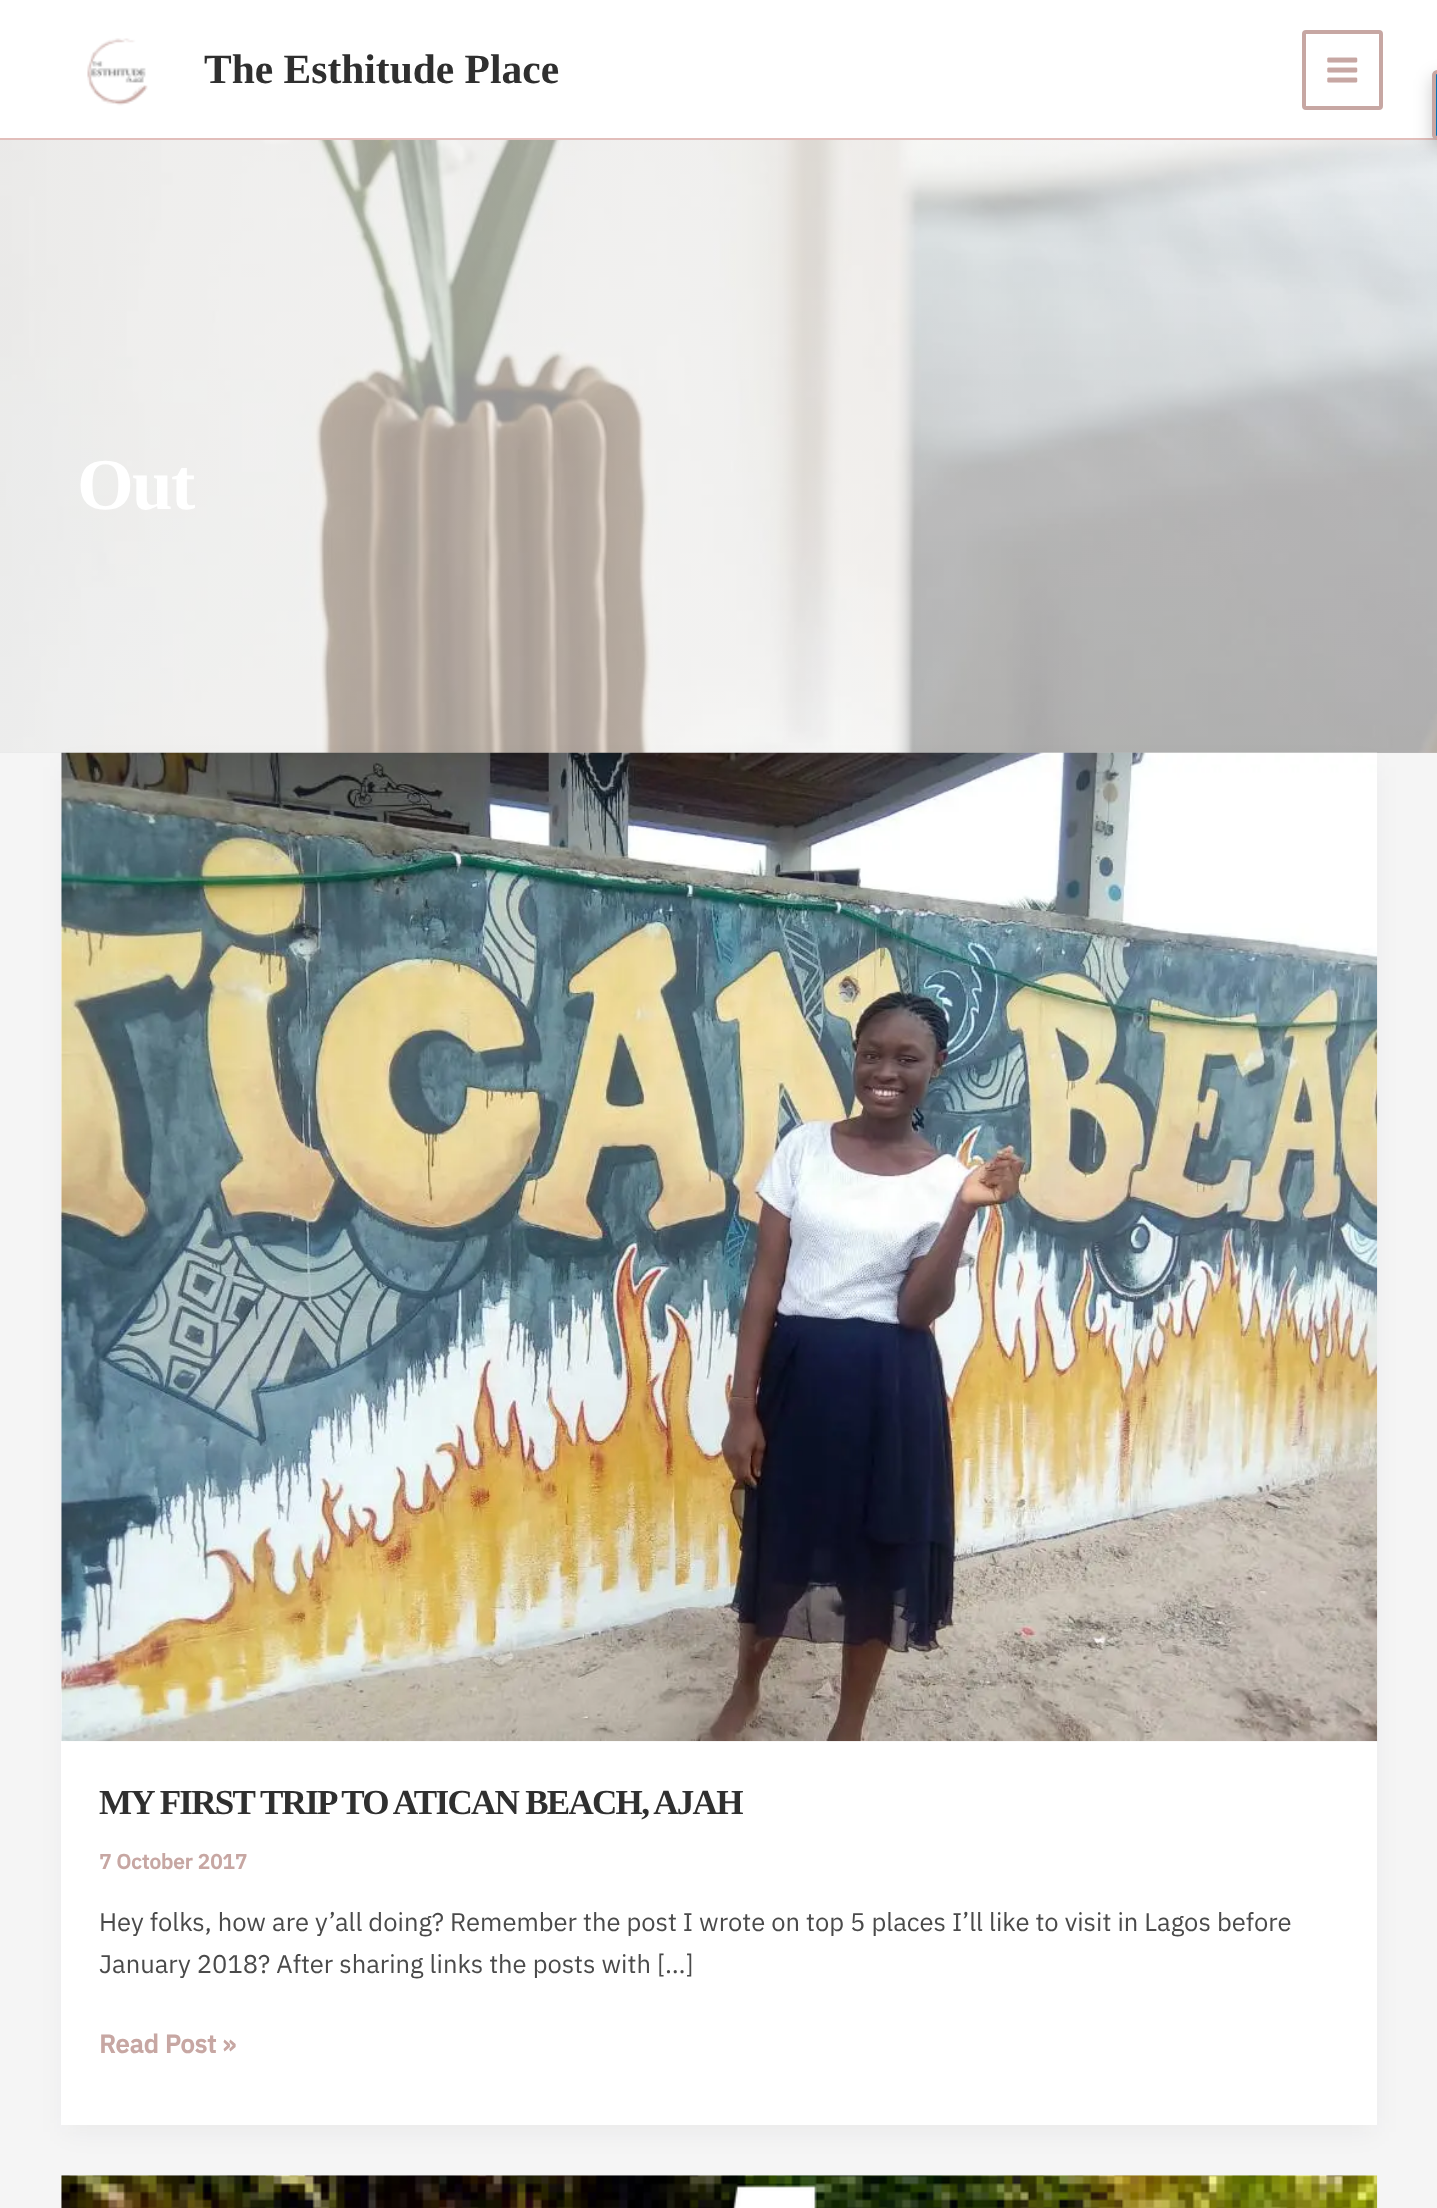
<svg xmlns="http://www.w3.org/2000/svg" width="1437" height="2208">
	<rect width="100%" height="100%" fill="#F5F5F5" />
	<rect x="0" y="0" width="1437" height="138" fill="#FFFFFF" />
	<rect x="0" y="138" width="1437" height="2" fill="#E2BEBB" />
	<image x="87" y="38" width="61" height="68" href="assets/img1.png" />
	<text x="204" y="83" font-family="Liberation Serif" font-size="41.5" font-weight="700" fill="#2F2F2F">The Esthitude Place</text>
	<rect x="1304" y="32" width="77" height="76" rx="2" fill="none" stroke="#C7A7A3" stroke-width="4" />
	<image x="1327" y="57" width="31" height="26" href="assets/img2.png" />
	<rect x="0" y="752" width="1437" height="1" fill="#EEEEEE" />
	<image x="0" y="140" width="1437" height="613" href="assets/img3.png" />
	<text x="77" y="509" font-family="Liberation Serif" font-size="73" font-weight="700" letter-spacing="-1.75" fill="#FFFFFF">Out</text>
	<rect x="65" y="767" width="1309" height="1365" fill="#101828" fill-opacity="0.05" filter="blur(13px)" />
	<rect x="61" y="753" width="1316" height="1372" fill="#FFFFFF" />
	<image x="61" y="752" width="1317" height="990" href="assets/img4.png" />
	<text x="99" y="1814" font-family="Liberation Serif" font-size="35.1" font-weight="700" letter-spacing="-1.75" fill="#2F2F2F">MY FIRST TRIP TO ATICAN BEACH, AJAH</text>
	<text x="99" y="1869" font-family="IBM Plex Sans" font-size="20.75" font-weight="700" fill="#C7A7A3">7 October 2017</text>
	<g font-family="IBM Plex Sans" font-size="25.55" fill="#4A4A4A">
		<text x="99" y="1931">Hey folks, how are y’all doing? Remember the post I wrote on top 5 places I’ll like to visit in Lagos before</text>
		<text x="99" y="1973">January 2018? After sharing links the posts with […]</text>
	</g>
	<text x="99" y="2053" font-family="IBM Plex Sans" font-size="25.55" font-weight="700" fill="#C7A7A3">Read Post »</text>
	<rect x="61" y="2175" width="1316" height="33" fill="#FFFFFF" />
	<image x="61" y="2175" width="1317" height="33" href="assets/img5.png" />
	<rect x="1432" y="77" width="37" height="70" rx="5" fill="#000000" fill-opacity="0.2" filter="blur(9px)" />
	<path d="M1437 72H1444V138H1437C1435.5 138 1434 136.5 1434 135V75C1434 73.5 1435.5 72 1437 72Z" fill="#0073B7" stroke="#C7A7A3" stroke-width="4" />
</svg>
